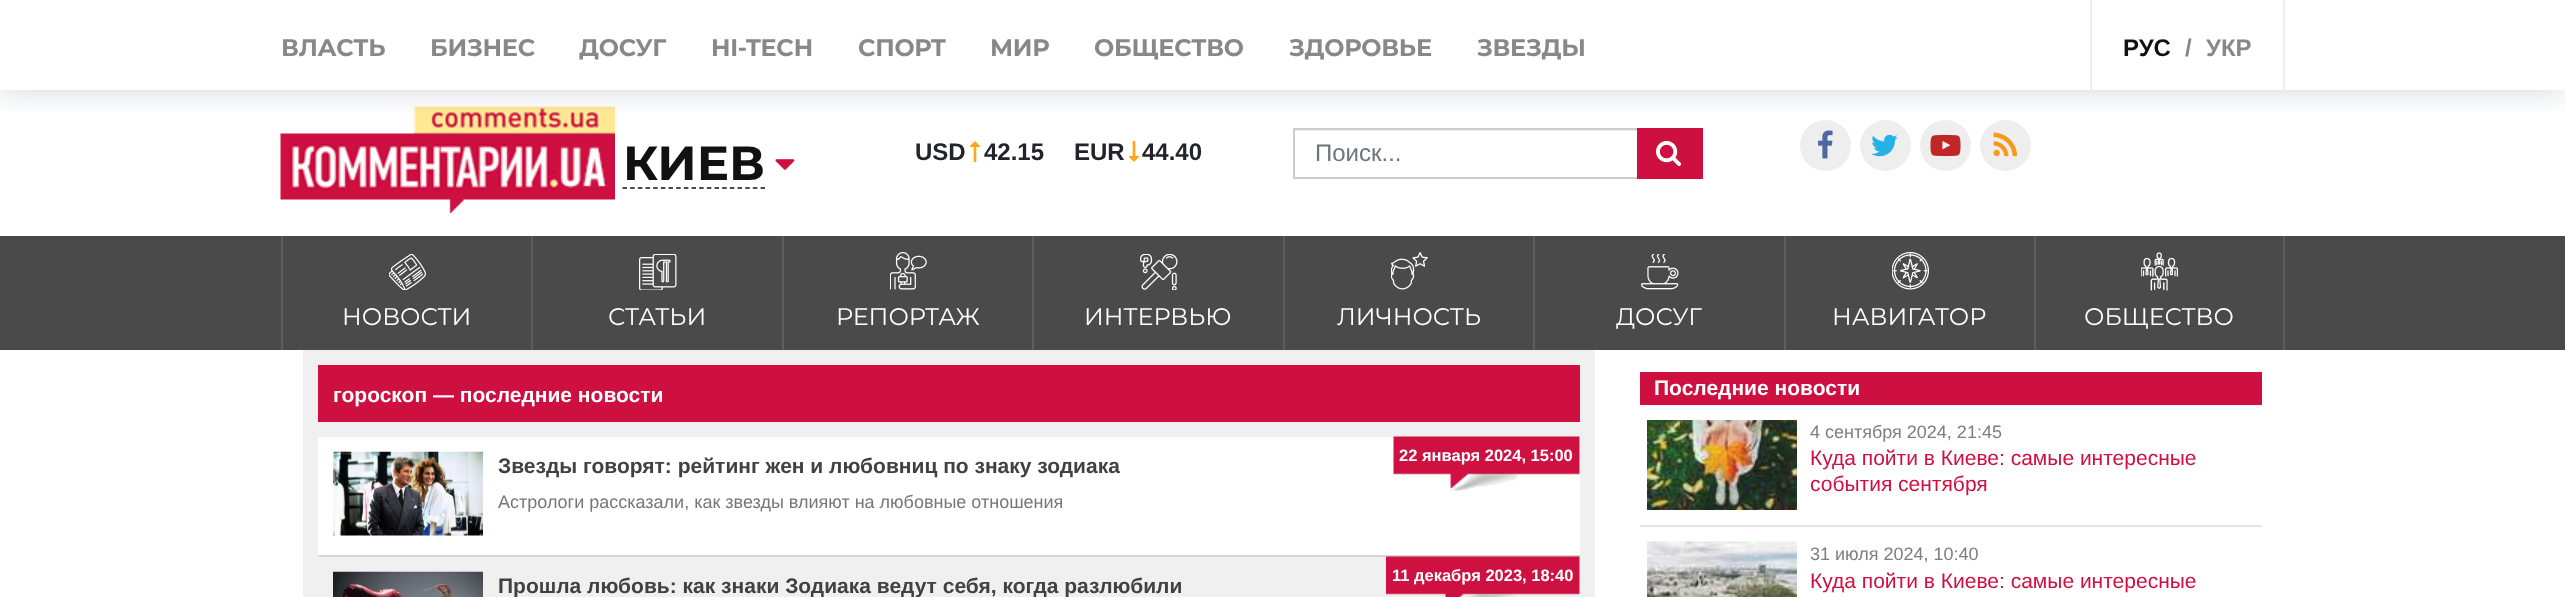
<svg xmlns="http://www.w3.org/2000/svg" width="2565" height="597">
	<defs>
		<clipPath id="clip1"><rect x="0" y="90" width="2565" height="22" /></clipPath>
	</defs>
	<rect width="100%" height="100%" fill="#FFFFFF" />
	<image x="280" y="106" width="335" height="107" href="assets/img1.png" />
	<rect x="1295" y="130" width="342" height="1" fill="#ECECEC" />
	<rect x="1294" y="129" width="408" height="49" fill="none" stroke="#CCCCCC" stroke-width="2" />
	<rect x="1637" y="128" width="66" height="51" fill="#CE1041" />
	<circle cx="1825.5" cy="145.5" r="25.5" fill="#EEEEEE" />
	<image x="1818" y="130" width="15" height="29" href="assets/img6.png" />
	<circle cx="1885.5" cy="145.5" r="25.5" fill="#EEEEEE" />
	<image x="1871" y="134" width="27" height="23" href="assets/img7.png" />
	<circle cx="1945.5" cy="145.5" r="25.5" fill="#EEEEEE" />
	<image x="1930" y="134" width="31" height="23" href="assets/img8.png" />
	<circle cx="2005.5" cy="145.5" r="25.5" fill="#EEEEEE" />
	<image x="1993" y="132" width="25" height="25" href="assets/img9.png" />
	<g clip-path="url(#clip1)">
		<rect x="0" y="0" width="2565" height="90" fill="#3E5375" fill-opacity="0.25" filter="blur(16px)" />
	</g>
	<g font-family="Montserrat" font-size="24" font-weight="700" letter-spacing="-0.25" fill="#888888">
		<text x="281" y="56">ВЛАСТЬ</text>
		<text x="430" y="56">БИЗНЕС</text>
		<text x="579" y="56">ДОСУГ</text>
		<text x="711" y="56">HI-TECH</text>
		<text x="858" y="56">СПОРТ</text>
		<text x="990" y="56">МИР</text>
		<text x="1094" y="56">ОБЩЕСТВО</text>
		<text x="1289" y="56">ЗДОРОВЬЕ</text>
		<text x="1477" y="56">ЗВЕЗДЫ</text>
	</g>
	<rect x="2283" y="0" width="2" height="93" fill="#EEEEEE" />
	<rect x="2090" y="0" width="2" height="93" fill="#EEEEEE" />
	<text x="2123" y="56" font-family="Liberation Sans" font-size="24" font-weight="700" fill="#111111">РУС</text>
	<g font-family="Liberation Sans" font-size="24" font-weight="700" fill="#888888">
		<text x="2185" y="56">/</text>
		<text x="2206" y="56">УКР</text>
	</g>
	<path d="M622.5 188H765" fill="none" stroke="#111111" stroke-width="1.5" stroke-dasharray="4.5 3.17" />
	<text x="623" y="180" font-family="Montserrat" font-size="48" font-weight="700" fill="#111111">КИЕВ</text>
	<image x="775" y="159" width="20" height="11" href="assets/img2.png" />
	<text x="915" y="160" font-family="Liberation Sans" font-size="24" font-weight="700" fill="#212529">USD</text>
	<image x="969" y="141" width="12" height="21" href="assets/img3.png" />
	<g font-family="Liberation Sans" font-size="24" font-weight="700" fill="#212529">
		<text x="984" y="160">42.15</text>
		<text x="1074" y="160">EUR</text>
	</g>
	<image x="1128" y="141" width="12" height="21" href="assets/img4.png" />
	<text x="1142" y="160" font-family="Liberation Sans" font-size="24" font-weight="700" fill="#212529">44.40</text>
	<text x="1315" y="161" font-family="Liberation Sans" font-size="24" fill="#6C757D">Поиск...</text>
	<image x="1656" y="141" width="26" height="25" href="assets/img5.png" />
	<rect x="0" y="236" width="2565" height="114" fill="#4A4A4A" />
	<rect x="281" y="236" width="2" height="114" fill="#5C5C5C" />
	<image x="389" y="254" width="37" height="36" href="assets/img10.png" />
	<text x="342" y="325" font-family="Montserrat" font-size="24" fill="#FFFFFF">НОВОСТИ</text>
	<rect x="531" y="236" width="2" height="114" fill="#5C5C5C" />
	<image x="639" y="254" width="38" height="36" href="assets/img11.png" />
	<text x="608" y="325" font-family="Montserrat" font-size="24" fill="#FFFFFF">СТАТЬИ</text>
	<rect x="782" y="236" width="2" height="114" fill="#5C5C5C" />
	<image x="890" y="252" width="37" height="38" href="assets/img12.png" />
	<text x="836" y="325" font-family="Montserrat" font-size="24" fill="#FFFFFF">РЕПОРТАЖ</text>
	<rect x="1032" y="236" width="2" height="114" fill="#5C5C5C" />
	<image x="1140" y="254" width="38" height="36" href="assets/img13.png" />
	<text x="1084" y="325" font-family="Montserrat" font-size="24" fill="#FFFFFF">ИНТЕРВЬЮ</text>
	<rect x="1283" y="236" width="2" height="114" fill="#5C5C5C" />
	<image x="1391" y="252" width="37" height="38" href="assets/img14.png" />
	<text x="1337" y="325" font-family="Montserrat" font-size="24" fill="#FFFFFF">ЛИЧНОСТЬ</text>
	<rect x="1533" y="236" width="2" height="114" fill="#5C5C5C" />
	<image x="1641" y="254" width="38" height="36" href="assets/img15.png" />
	<text x="1616" y="325" font-family="Montserrat" font-size="24" fill="#FFFFFF">ДОСУГ</text>
	<rect x="1784" y="236" width="2" height="114" fill="#5C5C5C" />
	<image x="1892" y="252" width="37" height="38" href="assets/img16.png" />
	<text x="1832" y="325" font-family="Montserrat" font-size="24" fill="#FFFFFF">НАВИГАТОР</text>
	<rect x="2283" y="236" width="2" height="114" fill="#5C5C5C" />
	<rect x="2034" y="236" width="2" height="114" fill="#5C5C5C" />
	<image x="2141" y="252" width="37" height="39" href="assets/img17.png" />
	<text x="2084" y="325" font-family="Montserrat" font-size="24" fill="#FFFFFF">ОБЩЕСТВО</text>
	<rect x="303" y="350" width="1292" height="247" fill="#F0F0F0" />
	<rect x="318" y="365" width="1262" height="57" fill="#CE1041" />
	<text x="333" y="402" font-family="Liberation Sans" font-size="21" font-weight="700" fill="#FFFFFF">гороскоп — последние новости</text>
	<rect x="318" y="437" width="1262" height="118" fill="#FFFFFF" />
	<rect x="318" y="555" width="1262" height="2" fill="#D6D6D6" />
	<image x="333" y="451" width="150" height="85" href="assets/img18.png" />
	<text x="498" y="473" font-family="Liberation Sans" font-size="21" font-weight="700" fill="#424141">Звезды говорят: рейтинг жен и любовниц по знаку зодиака</text>
	<image x="1393" y="436" width="187" height="55" href="assets/img19.png" />
	<text x="1399" y="461" font-family="Liberation Sans" font-size="16.5" font-weight="700" fill="#FFFFFF">22 января 2024, 15:00</text>
	<text x="498" y="508" font-family="Liberation Sans" font-size="18" fill="#777777">Астрологи рассказали, как звезды влияют на любовные отношения</text>
	<image x="333" y="571" width="150" height="26" href="assets/img20.png" />
	<text x="498" y="593" font-family="Liberation Sans" font-size="21" font-weight="700" fill="#424141">Прошла любовь: как знаки Зодиака ведут себя, когда разлюбили</text>
	<image x="1386" y="556" width="194" height="41" href="assets/img21.png" />
	<text x="1392" y="581" font-family="Liberation Sans" font-size="16.5" font-weight="700" fill="#FFFFFF">11 декабря 2023, 18:40</text>
	<rect x="1640" y="372" width="622" height="33" fill="#CE1041" />
	<text x="1654" y="395" font-family="Liberation Sans" font-size="21" font-weight="700" fill="#FFFFFF">Последние новости</text>
	<rect x="1640" y="525" width="622" height="2" fill="#E5E5E5" />
	<image x="1647" y="420" width="150" height="90" href="assets/img22.png" />
	<text x="1810" y="438" font-family="Liberation Sans" font-size="18" fill="#7E7E7E">4 сентября 2024, 21:45</text>
	<g font-family="Liberation Sans" font-size="21" fill="#CE1041">
		<text x="1810" y="465">Куда пойти в Киеве: самые интересные</text>
		<text x="1810" y="491">события сентября</text>
	</g>
	<image x="1647" y="541" width="150" height="56" href="assets/img23.png" />
	<text x="1810" y="560" font-family="Liberation Sans" font-size="18" fill="#7E7E7E">31 июля 2024, 10:40</text>
	<text x="1810" y="588" font-family="Liberation Sans" font-size="21" fill="#CE1041">Куда пойти в Киеве: самые интересные</text>
</svg>
